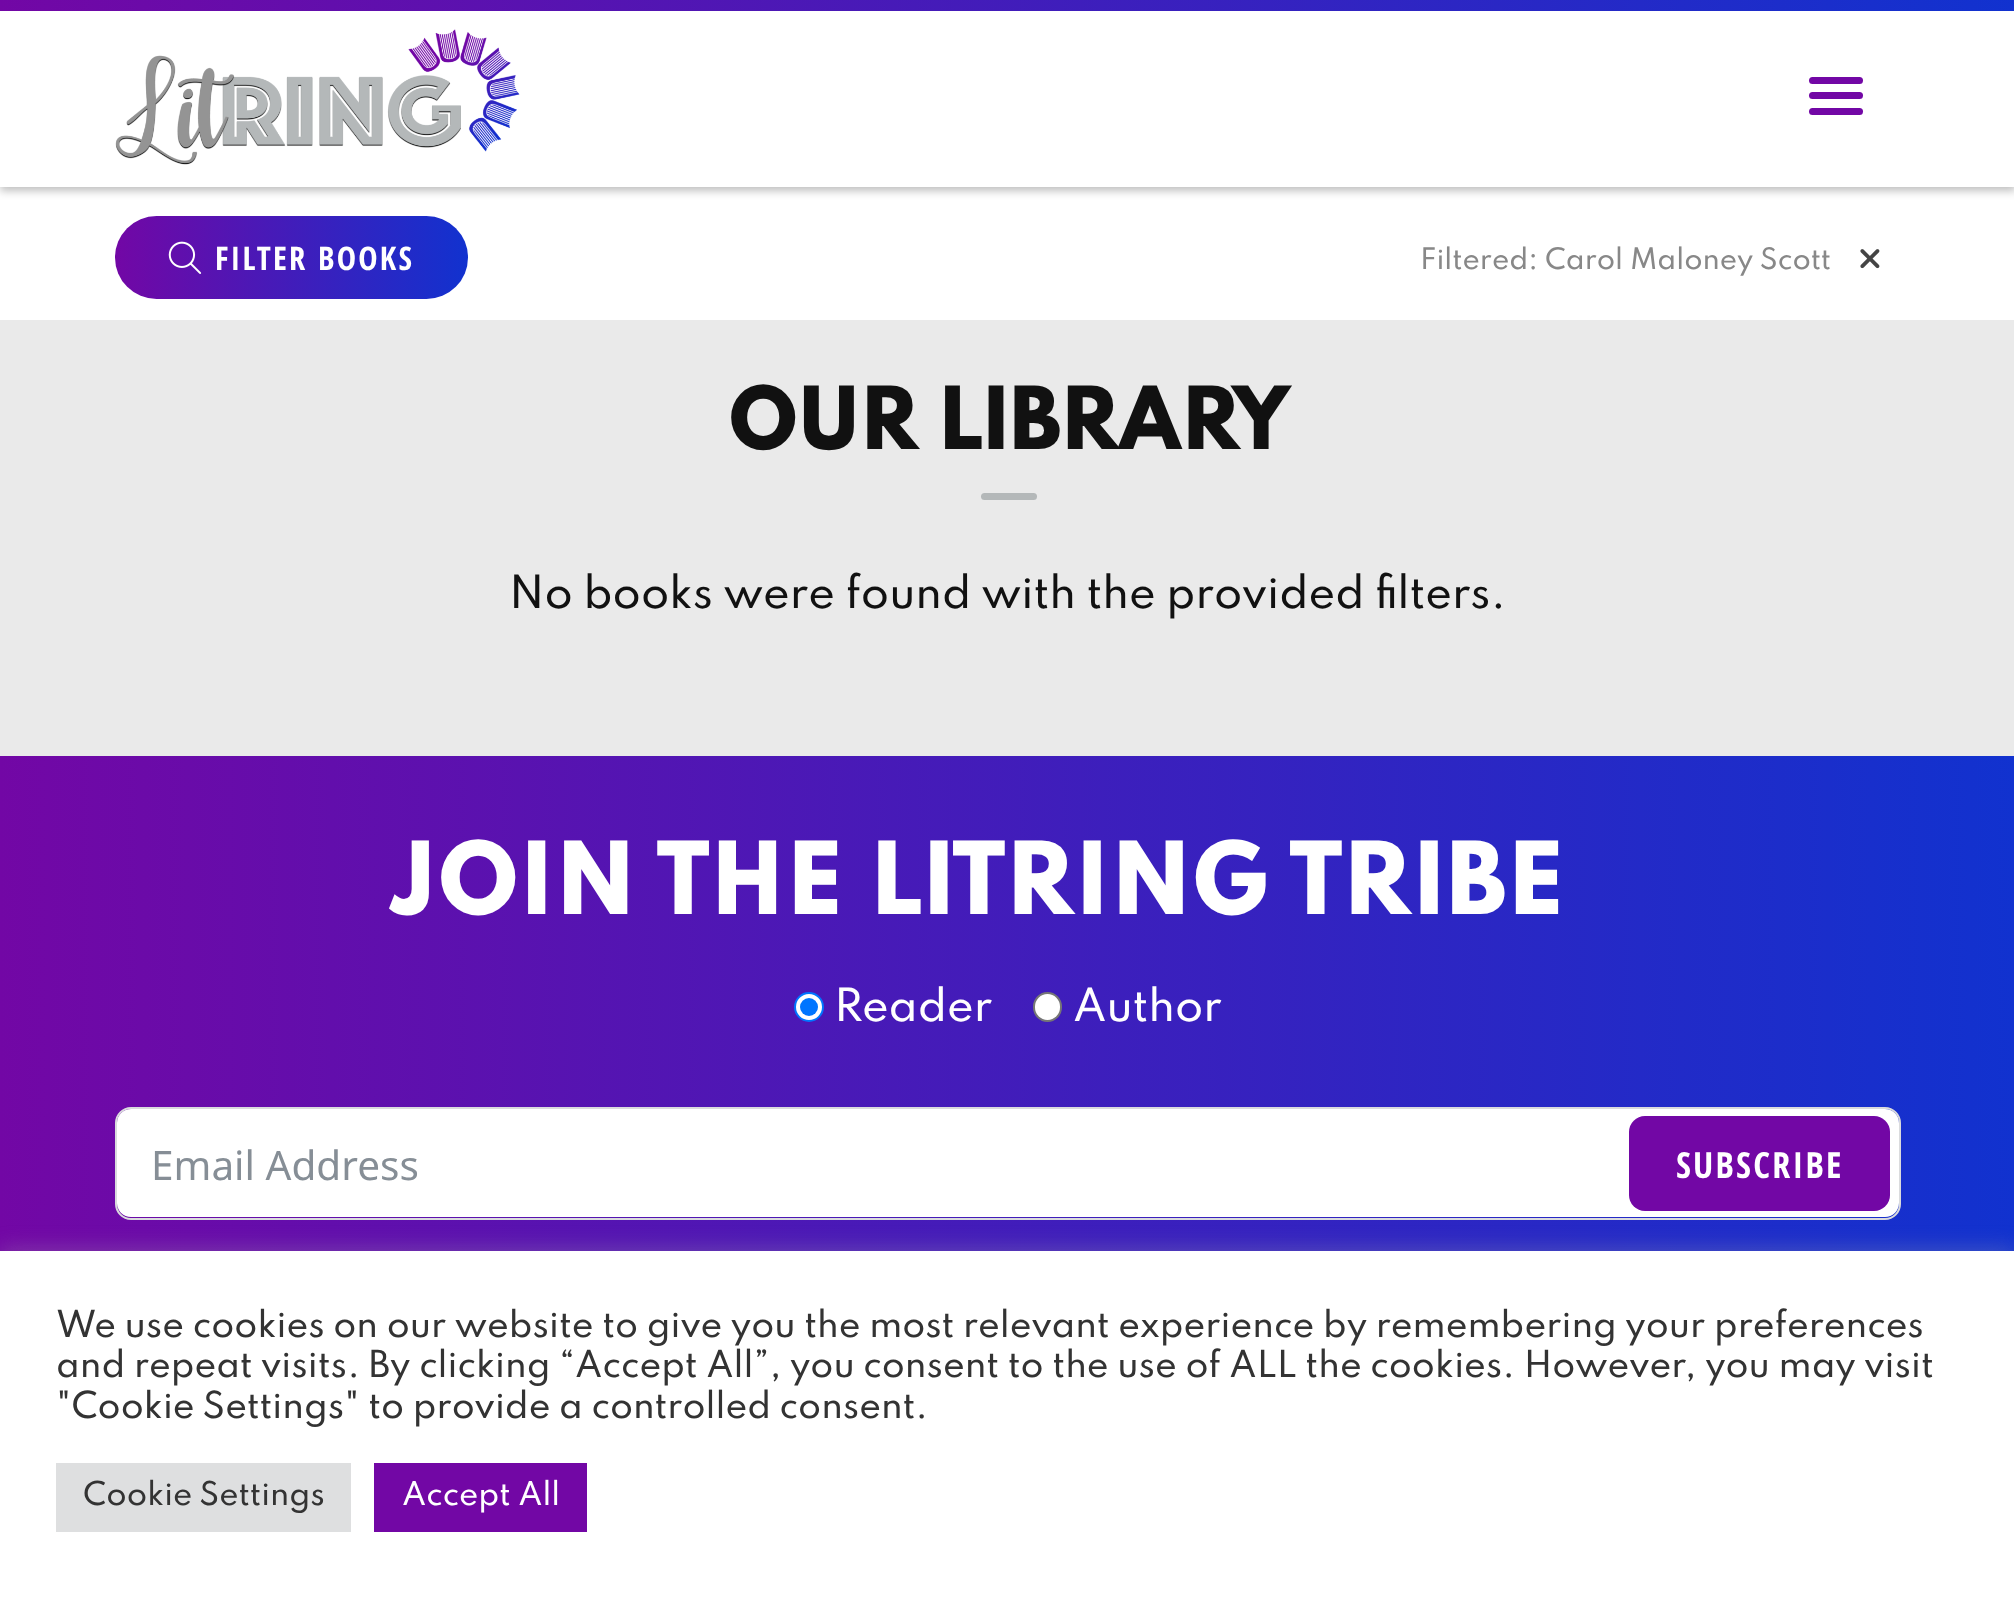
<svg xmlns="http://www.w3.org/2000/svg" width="2014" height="1599">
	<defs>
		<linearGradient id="g1" gradientUnits="userSpaceOnUse" x1="0" y1="5.6" x2="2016" y2="5.6"><stop offset="0" stop-color="#7207A5" /><stop offset="1" stop-color="#1132CF" /></linearGradient>
		<linearGradient id="g2" gradientUnits="userSpaceOnUse" x1="115" y1="258" x2="468" y2="258"><stop offset="0" stop-color="#7207A5" /><stop offset="1" stop-color="#1132CF" /></linearGradient>
		<linearGradient id="g3" gradientUnits="userSpaceOnUse" x1="0" y1="1038" x2="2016" y2="1038"><stop offset="0" stop-color="#7207A5" /><stop offset="1" stop-color="#1132CF" /></linearGradient>
	</defs>
	<rect width="100%" height="100%" fill="#FFFFFF" />
	<rect x="0" y="5" width="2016" height="186" fill="#000000" fill-opacity="0.25" filter="blur(4.5px)" />
	<rect x="0" y="11" width="2014" height="176" fill="#FFFFFF" />
	<rect x="0" y="0" width="2014" height="11" fill="url(#g1)" />
	<image x="115" y="29" width="405" height="136" href="assets/img1.png" />
	<rect x="1809" y="77" width="54" height="7" rx="3.5" fill="#7207A5" />
	<rect x="1809" y="92" width="54" height="7" rx="3.5" fill="#7207A5" />
	<rect x="1809" y="108" width="54" height="7" rx="3.5" fill="#7207A5" />
	<rect x="115" y="216" width="353" height="83" rx="41.5" fill="url(#g2)" />
	<image x="168" y="241" width="34" height="33" href="assets/img2.png" />
	<text x="215" y="270" font-family="Open Sans Condensed" font-size="32.5" font-weight="700" letter-spacing="2.25" fill="#FFFFFF">FILTER BOOKS</text>
	<text x="1420" y="269" font-family="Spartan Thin" font-size="26.3" font-weight="500" fill="#888888">Filtered: Carol Maloney Scott</text>
	<image x="1860" y="249" width="20" height="20" href="assets/img3.png" />
	<rect x="0" y="320" width="2014" height="436" fill="#EAEAEA" />
	<text x="728" y="449" font-family="Spartan Thin" font-size="77" font-weight="800" letter-spacing="-1.5" fill="#111111">OUR LIBRARY</text>
	<rect x="981" y="493" width="56" height="7" rx="3.5" fill="#B4B8B9" />
	<text x="509" y="608" font-family="Spartan Thin" font-size="40.5" font-weight="500" fill="#111111">No books were found with the provided filters.</text>
	<rect x="0" y="756" width="2014" height="495" fill="url(#g3)" />
	<text x="389" y="914" font-family="Spartan Thin" font-size="89.1" font-weight="800" fill="#FFFFFF">JOIN THE LITRING TRIBE</text>
	<circle cx="809" cy="1007" r="14" fill="#FFFFFF" stroke="#0075FF" stroke-width="2" />
	<circle cx="809" cy="1007" r="9" fill="#0075FF" />
	<text x="834" y="1021" font-family="Spartan Thin" font-size="40.5" font-weight="500" fill="#FFFFFF">Reader</text>
	<rect x="1034" y="993" width="27" height="28" rx="13.5" fill="#FFFFFF" stroke="#767676" stroke-width="2" />
	<text x="1073" y="1021" font-family="Spartan Thin" font-size="40.5" font-weight="500" fill="#FFFFFF">Author</text>
	<rect x="117" y="1109" width="1782" height="108" rx="14" fill="#FFFFFF" />
	<rect x="116" y="1108" width="1784" height="111" rx="15" fill="none" stroke="#DADBDD" stroke-width="2" />
	<text x="151" y="1180" font-family="Noto Sans" font-size="40.5" fill="#868E96">Email Address</text>
	<rect x="1629" y="1116" width="261" height="95" rx="16" fill="#7207A5" />
	<text x="1676" y="1178" font-family="Open Sans Condensed" font-size="36" font-weight="700" letter-spacing="2.25" fill="#FFFFFF">SUBSCRIBE</text>
	<rect x="0" y="1249" width="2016" height="349" fill="#ACABAB" fill-opacity="0.3" filter="blur(11px)" />
	<rect x="0" y="1251" width="2014" height="348" fill="#FFFFFF" />
	<g font-family="Spartan Thin" font-size="33" font-weight="500" fill="#333333">
		<text x="56" y="1337">We use cookies on our website to give you the most relevant experience by remembering your preferences</text>
		<text x="56" y="1377">and repeat visits. By clicking “Accept All”, you consent to the use of ALL the cookies. However, you may visit</text>
		<text x="56" y="1418">"Cookie Settings" to provide a controlled consent.</text>
	</g>
	<rect x="56" y="1463" width="295" height="69" fill="#DEDFE0" />
	<text x="83" y="1505" font-family="Spartan Thin" font-size="29.25" font-weight="500" fill="#333333">Cookie Settings</text>
	<rect x="374" y="1463" width="213" height="69" fill="#7207A5" />
	<text x="402" y="1505" font-family="Spartan Thin" font-size="29.25" font-weight="500" fill="#FFFFFF">Accept All</text>
</svg>
